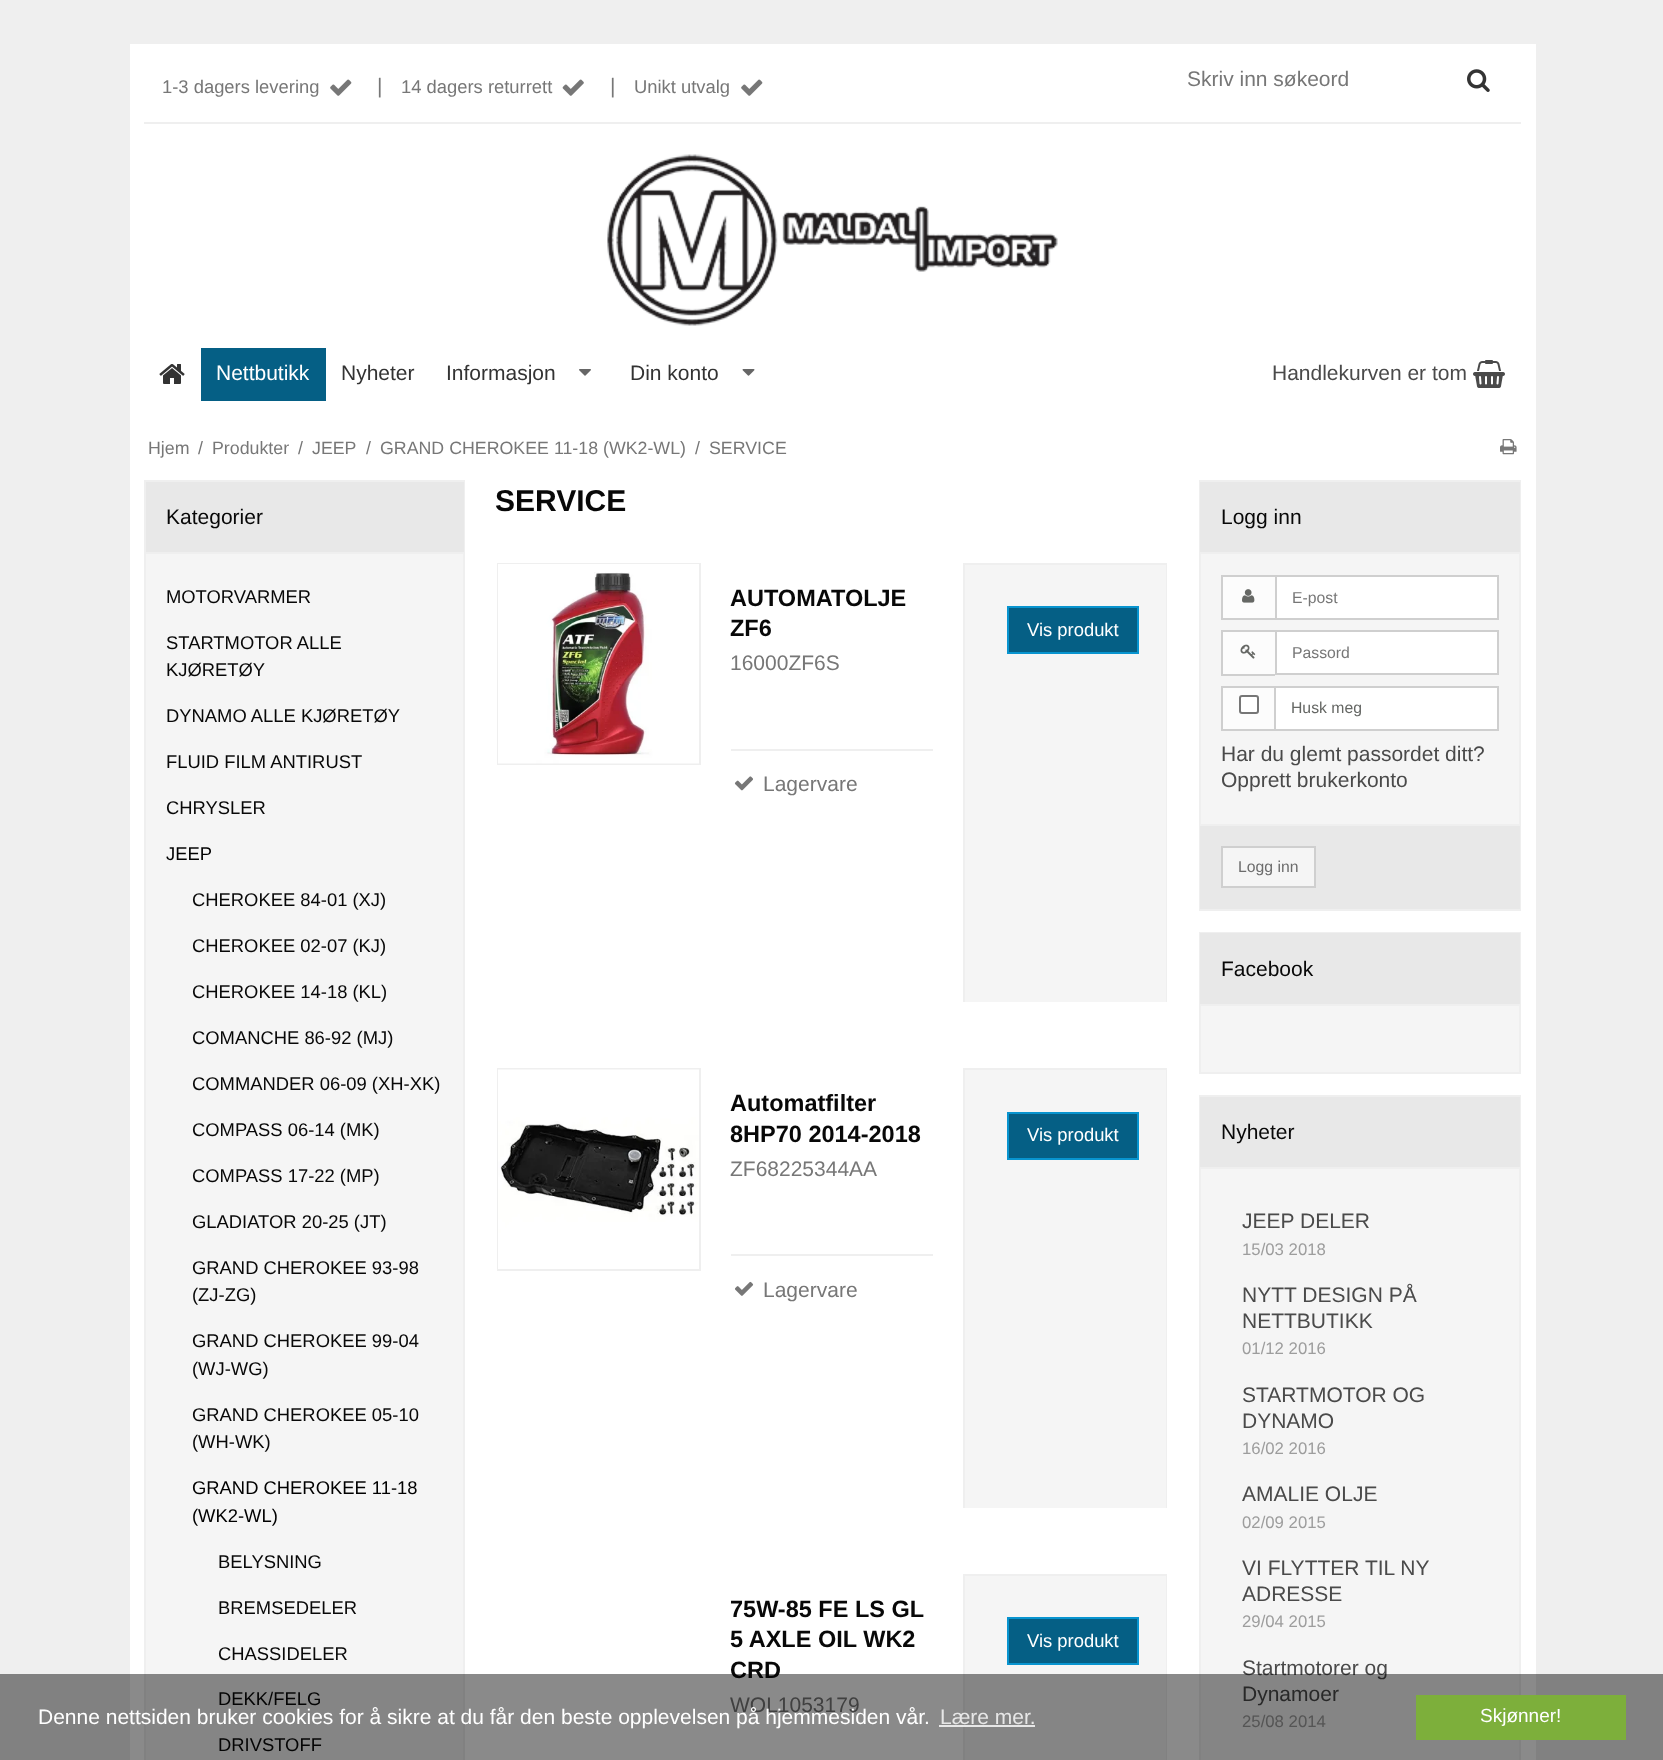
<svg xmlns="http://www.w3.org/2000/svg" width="1663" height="1760">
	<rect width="100%" height="100%" fill="#EFEFEF" />
	<rect x="130" y="44" width="1406" height="1716" fill="#FFFFFF" />
	<text x="162" y="93" font-family="Liberation Sans" font-size="18.4" fill="#777777">1-3 dagers levering</text>
	<image x="330" y="79" width="22" height="17" href="assets/img1.png" />
	<text x="377" y="93" font-family="Liberation Sans" font-size="21" fill="#777777">|</text>
	<text x="401" y="93" font-family="Liberation Sans" font-size="18.4" fill="#777777">14 dagers returrett</text>
	<image x="562" y="79" width="22" height="17" href="assets/img2.png" />
	<text x="610" y="93" font-family="Liberation Sans" font-size="21" fill="#777777">|</text>
	<text x="634" y="93" font-family="Liberation Sans" font-size="18.4" fill="#777777">Unikt utvalg</text>
	<image x="741" y="79" width="22" height="17" href="assets/img1.png" />
	<text x="1187" y="86" font-family="Liberation Sans" font-size="21" fill="#777777">Skriv inn søkeord</text>
	<image x="1467" y="69" width="23" height="23" href="assets/img3.png" />
	<rect x="144" y="122" width="1377" height="2" fill="#EFEFEF" />
	<image x="607" y="154" width="451" height="172" href="assets/img4.png" />
	<image x="159" y="364" width="26" height="20" href="assets/img5.png" />
	<rect x="201" y="348" width="125" height="53" fill="#055F85" />
	<text x="216" y="380" font-family="Liberation Sans" font-size="21" fill="#FFFFFF">Nettbutikk</text>
	<g font-family="Liberation Sans" font-size="21" fill="#333333">
		<text x="341" y="380">Nyheter</text>
		<text x="446" y="380">Informasjon</text>
	</g>
	<image x="579" y="369" width="12" height="7" href="assets/img6.png" />
	<text x="630" y="380" font-family="Liberation Sans" font-size="21" fill="#333333">Din konto</text>
	<image x="742" y="369" width="13" height="7" href="assets/img7.png" />
	<text x="1272" y="380" font-family="Liberation Sans" font-size="21" fill="#4A4A4A">Handlekurven er tom</text>
	<image x="1473" y="360" width="32" height="28" href="assets/img8.png" />
	<g font-family="Liberation Sans" font-size="17.8" fill="#777777">
		<text x="148" y="454">Hjem</text>
		<text x="198" y="454">/</text>
		<text x="212" y="454">Produkter</text>
		<text x="298" y="454">/</text>
		<text x="312" y="454">JEEP</text>
		<text x="366" y="454">/</text>
		<text x="380" y="454">GRAND CHEROKEE 11-18 (WK2-WL)</text>
		<text x="695" y="454">/</text>
		<text x="709" y="454">SERVICE</text>
	</g>
	<image x="1500" y="439" width="17" height="16" href="assets/img9.png" />
	<rect x="146" y="554" width="317" height="1206" fill="#F5F5F5" />
	<rect x="145" y="481" width="319" height="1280" fill="none" stroke="#EFEFEF" stroke-width="2" />
	<rect x="146" y="482" width="318" height="70" fill="#E8E8E8" />
	<rect x="146" y="552" width="318" height="2" fill="#EFEFEF" />
	<text x="166" y="524" font-family="Liberation Sans" font-size="21" fill="#080808">Kategorier</text>
	<g font-family="Liberation Sans" font-size="18.4" fill="#080808">
		<text x="166" y="603">MOTORVARMER</text>
		<text x="166" y="649">STARTMOTOR ALLE</text>
		<text x="166" y="676">KJØRETØY</text>
		<text x="166" y="722">DYNAMO ALLE KJØRETØY</text>
		<text x="166" y="768">FLUID FILM ANTIRUST</text>
		<text x="166" y="814">CHRYSLER</text>
	</g>
	<text x="166" y="860" font-family="Liberation Sans" font-size="18.4" fill="#000000">JEEP</text>
	<g font-family="Liberation Sans" font-size="18.4" fill="#080808">
		<text x="192" y="906">CHEROKEE 84-01 (XJ)</text>
		<text x="192" y="952">CHEROKEE 02-07 (KJ)</text>
		<text x="192" y="998">CHEROKEE 14-18 (KL)</text>
		<text x="192" y="1044">COMANCHE 86-92 (MJ)</text>
		<text x="192" y="1090">COMMANDER 06-09 (XH-XK)</text>
		<text x="192" y="1136">COMPASS 06-14 (MK)</text>
		<text x="192" y="1182">COMPASS 17-22 (MP)</text>
		<text x="192" y="1228">GLADIATOR 20-25 (JT)</text>
		<text x="192" y="1274">GRAND CHEROKEE 93-98</text>
		<text x="192" y="1301">(ZJ-ZG)</text>
		<text x="192" y="1347">GRAND CHEROKEE 99-04</text>
		<text x="192" y="1375">(WJ-WG)</text>
		<text x="192" y="1421">GRAND CHEROKEE 05-10</text>
		<text x="192" y="1448">(WH-WK)</text>
	</g>
	<g font-family="Liberation Sans" font-size="18.4" fill="#000000">
		<text x="192" y="1494">GRAND CHEROKEE 11-18</text>
		<text x="192" y="1522">(WK2-WL)</text>
	</g>
	<g font-family="Liberation Sans" font-size="18.4" fill="#080808">
		<text x="218" y="1568">BELYSNING</text>
		<text x="218" y="1614">BREMSEDELER</text>
		<text x="218" y="1660">CHASSIDELER</text>
		<text x="218" y="1705">DEKK/FELG</text>
		<text x="218" y="1751">DRIVSTOFF</text>
	</g>
	<text x="495" y="511" font-family="Liberation Sans" font-size="30" font-weight="700" fill="#080808">SERVICE</text>
	<rect x="498" y="564" width="202" height="200" fill="none" stroke="#EFEFEF" stroke-width="2" />
	<image x="498" y="564" width="201" height="200" href="assets/img10.png" />
	<g font-family="Liberation Sans" font-size="23.5" font-weight="700" fill="#080808">
		<text x="730" y="606">AUTOMATOLJE</text>
		<text x="730" y="636">ZF6</text>
	</g>
	<text x="730" y="670" font-family="Liberation Sans" font-size="21" fill="#777777">16000ZF6S</text>
	<rect x="731" y="749" width="202" height="2" fill="#EFEFEF" />
	<image x="734" y="776" width="19" height="15" href="assets/img11.png" />
	<text x="763" y="791" font-family="Liberation Sans" font-size="21" fill="#777777">Lagervare</text>
	<rect x="965" y="565" width="201" height="437" fill="#F5F5F5" />
	<rect x="963" y="563" width="204" height="2" fill="#EFEFEF" />
	<rect x="1166" y="563" width="1" height="439" fill="#EFEFEF" />
	<rect x="963" y="563" width="2" height="439" fill="#EFEFEF" />
	<rect x="1008" y="607" width="130" height="46" fill="#055F85" stroke="#0894CF" stroke-width="2" />
	<text x="1027" y="636" font-family="Liberation Sans" font-size="18.4" fill="#FFFFFF">Vis produkt</text>
	<rect x="498" y="1069" width="202" height="201" fill="none" stroke="#EFEFEF" stroke-width="2" />
	<image x="498" y="1069" width="201" height="200" href="assets/img12.png" />
	<g font-family="Liberation Sans" font-size="23.5" font-weight="700" fill="#080808">
		<text x="730" y="1111">Automatfilter</text>
		<text x="730" y="1142">8HP70 2014-2018</text>
	</g>
	<text x="730" y="1176" font-family="Liberation Sans" font-size="21" fill="#777777">ZF68225344AA</text>
	<rect x="731" y="1254" width="202" height="2" fill="#EFEFEF" />
	<image x="735" y="1281" width="19" height="15" href="assets/img13.png" />
	<text x="763" y="1297" font-family="Liberation Sans" font-size="21" fill="#777777">Lagervare</text>
	<rect x="965" y="1070" width="201" height="438" fill="#F5F5F5" />
	<rect x="963" y="1068" width="204" height="2" fill="#EFEFEF" />
	<rect x="1166" y="1068" width="1" height="440" fill="#EFEFEF" />
	<rect x="963" y="1068" width="2" height="440" fill="#EFEFEF" />
	<rect x="1008" y="1113" width="130" height="46" fill="#055F85" stroke="#0894CF" stroke-width="2" />
	<text x="1027" y="1141" font-family="Liberation Sans" font-size="18.4" fill="#FFFFFF">Vis produkt</text>
	<g font-family="Liberation Sans" font-size="23.5" font-weight="700" fill="#080808">
		<text x="730" y="1617">75W-85 FE LS GL</text>
		<text x="730" y="1647">5 AXLE OIL WK2</text>
		<text x="730" y="1678">CRD</text>
	</g>
	<text x="730" y="1712" font-family="Liberation Sans" font-size="21" fill="#777777">WOL1053179</text>
	<rect x="965" y="1576" width="201" height="184" fill="#F5F5F5" />
	<rect x="963" y="1574" width="204" height="2" fill="#EFEFEF" />
	<rect x="1166" y="1574" width="1" height="186" fill="#EFEFEF" />
	<rect x="963" y="1574" width="2" height="186" fill="#EFEFEF" />
	<rect x="1008" y="1618" width="130" height="46" fill="#055F85" stroke="#0894CF" stroke-width="2" />
	<text x="1027" y="1647" font-family="Liberation Sans" font-size="18.4" fill="#FFFFFF">Vis produkt</text>
	<rect x="1201" y="554" width="318" height="270" fill="#F5F5F5" />
	<rect x="1200" y="481" width="320" height="429" fill="none" stroke="#EFEFEF" stroke-width="2" />
	<rect x="1200" y="482" width="320" height="70" fill="#E8E8E8" />
	<rect x="1200" y="552" width="320" height="2" fill="#EFEFEF" />
	<text x="1221" y="524" font-family="Liberation Sans" font-size="21" fill="#080808">Logg inn</text>
	<rect x="1223" y="577" width="52" height="41" fill="#FCFCFC" />
	<rect x="1221" y="575" width="54" height="2" fill="#CFCFCF" />
	<rect x="1221" y="618" width="54" height="2" fill="#CFCFCF" />
	<rect x="1221" y="575" width="2" height="45" fill="#CFCFCF" />
	<image x="1242" y="589" width="13" height="14" href="assets/img14.png" />
	<rect x="1276" y="576" width="222" height="43" fill="#FFFFFF" stroke="#CFCFCF" stroke-width="2" />
	<text x="1292" y="603" font-family="Liberation Sans" font-size="15.75" fill="#777777">E-post</text>
	<rect x="1223" y="632" width="52" height="42" fill="#FCFCFC" />
	<rect x="1221" y="630" width="54" height="2" fill="#CFCFCF" />
	<rect x="1221" y="674" width="54" height="2" fill="#CFCFCF" />
	<rect x="1221" y="630" width="2" height="45" fill="#CFCFCF" />
	<image x="1240" y="644" width="16" height="15" href="assets/img15.png" />
	<rect x="1276" y="631" width="222" height="43" fill="#FFFFFF" stroke="#CFCFCF" stroke-width="2" />
	<text x="1292" y="658" font-family="Liberation Sans" font-size="15.75" fill="#777777">Passord</text>
	<rect x="1223" y="688" width="51" height="41" fill="#FCFCFC" />
	<rect x="1221" y="686" width="53" height="2" fill="#CFCFCF" />
	<rect x="1221" y="729" width="53" height="2" fill="#CFCFCF" />
	<rect x="1221" y="686" width="2" height="45" fill="#CFCFCF" />
	<rect x="1240" y="696" width="18" height="17" rx="2" fill="#FFFFFF" stroke="#767676" stroke-width="2" />
	<rect x="1275" y="687" width="223" height="43" fill="#FFFFFF" stroke="#CFCFCF" stroke-width="2" />
	<text x="1291" y="713" font-family="Liberation Sans" font-size="15.75" fill="#656764">Husk meg</text>
	<g font-family="Liberation Sans" font-size="21" fill="#4A4A4A">
		<text x="1221" y="761">Har du glemt passordet ditt?</text>
		<text x="1221" y="787">Opprett brukerkonto</text>
	</g>
	<rect x="1200" y="826" width="320" height="83" fill="#E8E8E8" />
	<rect x="1200" y="824" width="320" height="2" fill="#EFEFEF" />
	<rect x="1222" y="847" width="93" height="40" fill="#F5F5F5" stroke="#CFCFCF" stroke-width="2" />
	<text x="1238" y="872" font-family="Liberation Sans" font-size="15.75" fill="#6C6C6C">Logg inn</text>
	<rect x="1201" y="1006" width="318" height="66" fill="#F5F5F5" />
	<rect x="1200" y="933" width="320" height="140" fill="none" stroke="#EFEFEF" stroke-width="2" />
	<rect x="1200" y="933" width="320" height="71" fill="#E8E8E8" />
	<rect x="1200" y="1004" width="320" height="2" fill="#EFEFEF" />
	<text x="1221" y="976" font-family="Liberation Sans" font-size="21" fill="#080808">Facebook</text>
	<rect x="1201" y="1169" width="318" height="591" fill="#F5F5F5" />
	<rect x="1200" y="1096" width="320" height="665" fill="none" stroke="#EFEFEF" stroke-width="2" />
	<rect x="1200" y="1097" width="320" height="70" fill="#E8E8E8" />
	<rect x="1200" y="1167" width="320" height="2" fill="#EFEFEF" />
	<text x="1221" y="1139" font-family="Liberation Sans" font-size="21" fill="#080808">Nyheter</text>
	<text x="1242" y="1228" font-family="Liberation Sans" font-size="21" fill="#4A4A4A">JEEP DELER</text>
	<text x="1242" y="1255" font-family="Liberation Sans" font-size="16.75" fill="#9D9D9D">15/03 2018</text>
	<g font-family="Liberation Sans" font-size="21" fill="#4A4A4A">
		<text x="1242" y="1302">NYTT DESIGN PÅ</text>
		<text x="1242" y="1328">NETTBUTIKK</text>
	</g>
	<text x="1242" y="1354" font-family="Liberation Sans" font-size="16.75" fill="#9D9D9D">01/12 2016</text>
	<g font-family="Liberation Sans" font-size="21" fill="#4A4A4A">
		<text x="1242" y="1402">STARTMOTOR OG</text>
		<text x="1242" y="1428">DYNAMO</text>
	</g>
	<text x="1242" y="1454" font-family="Liberation Sans" font-size="16.75" fill="#9D9D9D">16/02 2016</text>
	<text x="1242" y="1501" font-family="Liberation Sans" font-size="21" fill="#4A4A4A">AMALIE OLJE</text>
	<text x="1242" y="1528" font-family="Liberation Sans" font-size="16.75" fill="#9D9D9D">02/09 2015</text>
	<g font-family="Liberation Sans" font-size="21" fill="#4A4A4A">
		<text x="1242" y="1575">VI FLYTTER TIL NY</text>
		<text x="1242" y="1601">ADRESSE</text>
	</g>
	<text x="1242" y="1627" font-family="Liberation Sans" font-size="16.75" fill="#9D9D9D">29/04 2015</text>
	<g font-family="Liberation Sans" font-size="21" fill="#4A4A4A">
		<text x="1242" y="1675">Startmotorer og</text>
		<text x="1242" y="1701">Dynamoer</text>
	</g>
	<text x="1242" y="1727" font-family="Liberation Sans" font-size="16.75" fill="#9D9D9D">25/08 2014</text>
	<rect x="0" y="1674" width="1663" height="86" fill="#000000" fill-opacity="0.46" />
	<text x="38" y="1724" font-family="Liberation Sans" font-size="21" fill="#FFFFFF">Denne nettsiden bruker cookies for å sikre at du får den beste opplevelsen på hjemmesiden vår.</text>
	<text x="940" y="1724" font-family="Liberation Sans" font-size="21" fill="#E7E7E7">Lære mer.</text>
	<rect x="939" y="1725" width="96" height="2" fill="#FFFFFF" fill-opacity="0.8" />
	<rect x="1416" y="1695" width="210" height="45" fill="#7DAF3B" />
	<text x="1480" y="1722" font-family="Liberation Sans" font-size="19" fill="#FFFFFF">Skjønner!</text>
</svg>
